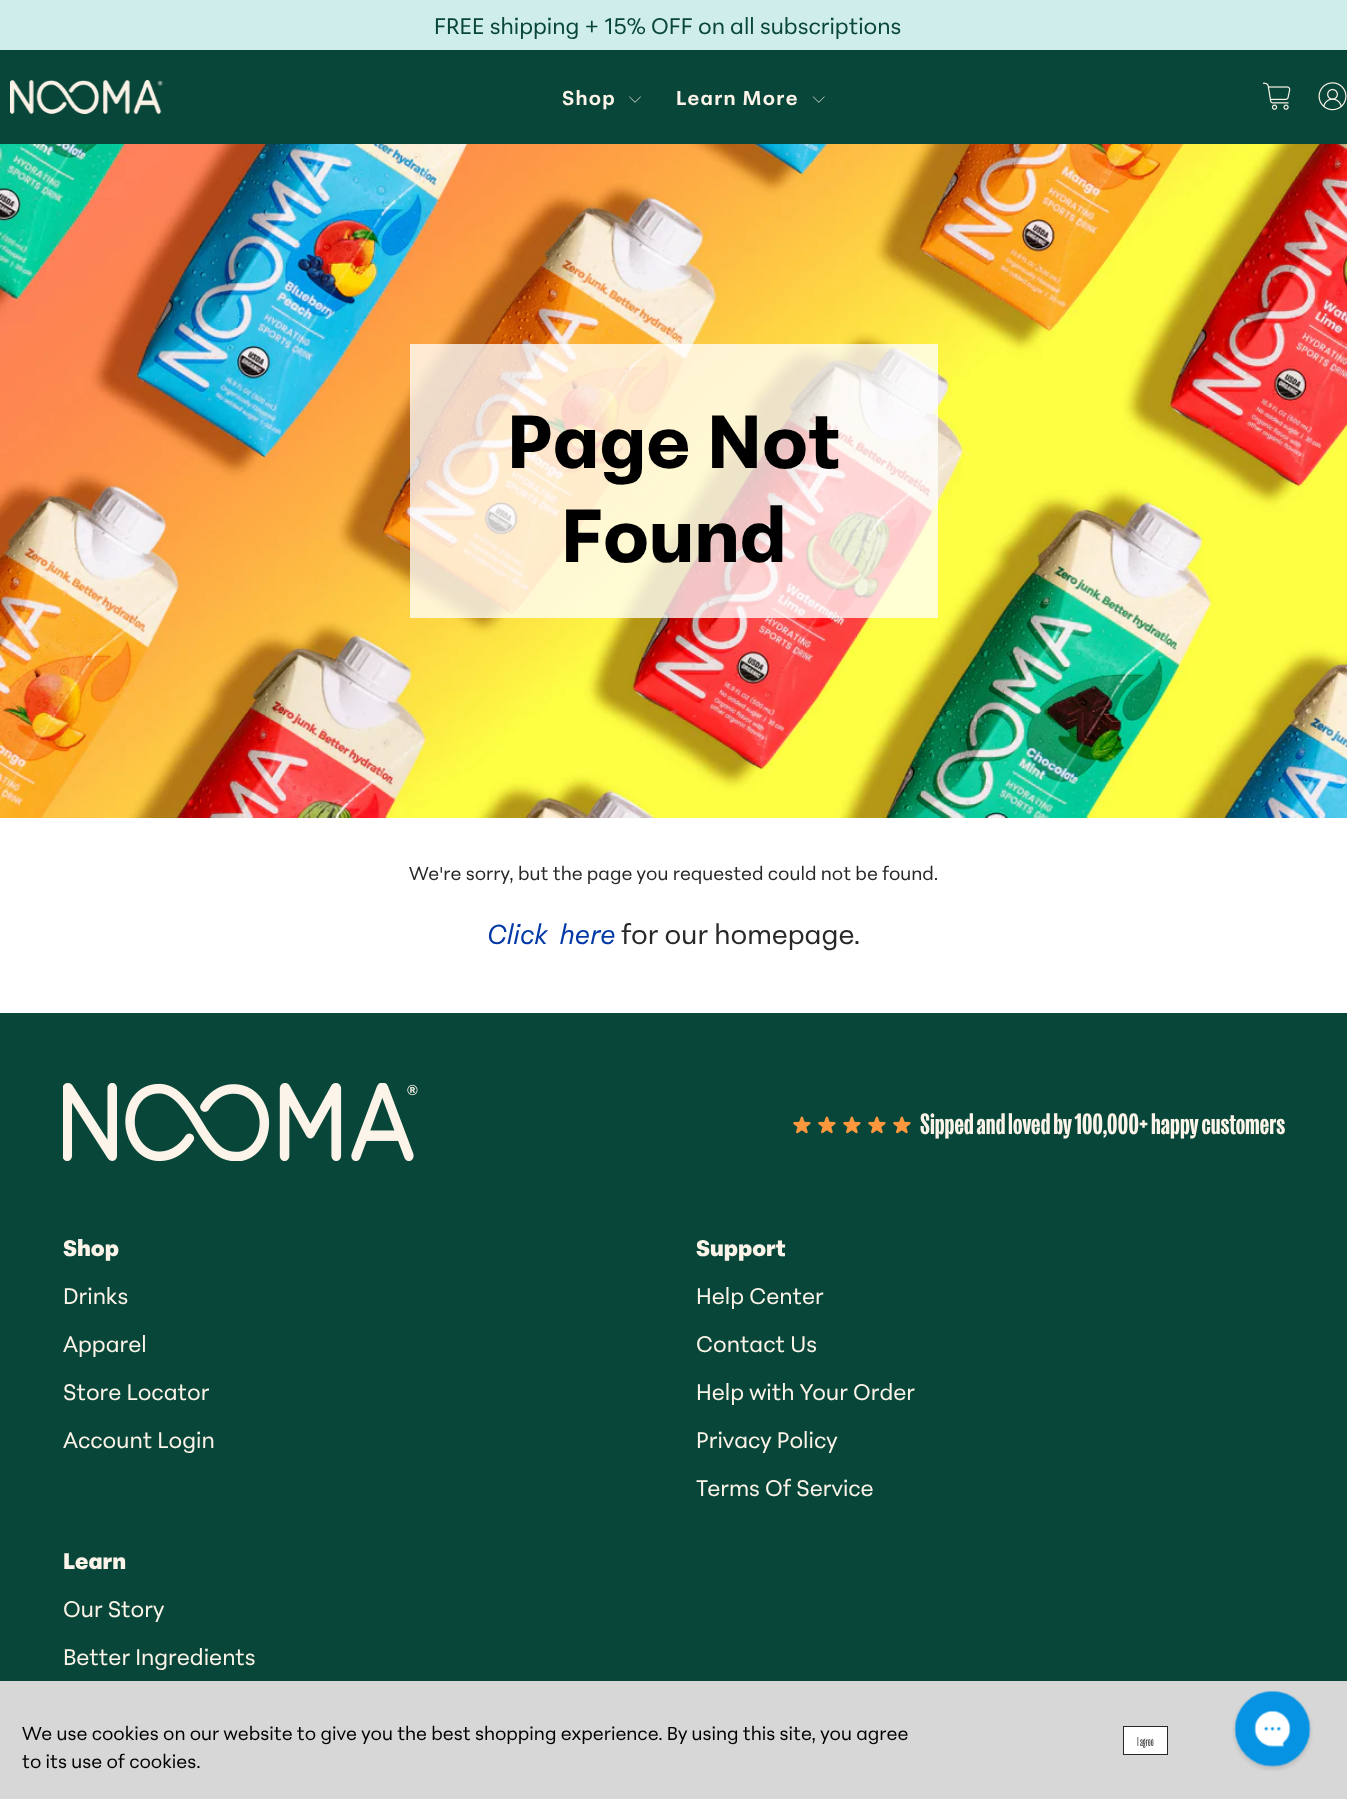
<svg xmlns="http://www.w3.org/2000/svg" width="1347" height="1799">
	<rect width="100%" height="100%" fill="#FFFFFF" />
	<rect x="0" y="0" width="1347" height="50" fill="#CFEDEB" />
	<text x="434" y="34" font-family="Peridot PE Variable" font-size="22.5" fill="#084639">FREE shipping + 15% OFF on all subscriptions</text>
	<rect x="0" y="50" width="1347" height="94" fill="#084639" />
	<image x="10" y="80" width="153" height="34" href="assets/img1.png" />
	<text x="562" y="105" font-family="Peridot PE Variable" font-size="20" font-weight="700" letter-spacing="1.25" fill="#FDF4E9">Shop</text>
	<image x="629" y="96" width="12" height="7" href="assets/img2.png" />
	<text x="676" y="105" font-family="Peridot PE Variable" font-size="20" font-weight="700" letter-spacing="1.25" fill="#FDF4E9">Learn More</text>
	<image x="812" y="96" width="13" height="7" href="assets/img3.png" />
	<image x="1263" y="82" width="28" height="28" href="assets/img4.png" />
	<image x="1318" y="82" width="29" height="29" href="assets/img5.png" />
	<image x="0" y="144" width="1347" height="674" href="assets/img6.png" />
	<rect x="410" y="344" width="528" height="274" fill="#FFFFFF" fill-opacity="0.77" />
	<g font-family="Peridot PE Variable" font-size="75" font-weight="800" fill="#000000">
		<text x="507" y="468">Page Not</text>
		<text x="561" y="562">Found</text>
	</g>
	<text x="409" y="880" font-family="Peridot PE Variable" font-size="18.75" fill="#282828">We're sorry, but the page you requested could not be found.</text>
	<text x="487" y="944" word-spacing="6" font-family="Peridot PE Variable" font-size="27.5" font-style="italic" fill="#0339A6">Click here</text>
	<text x="621" y="944" font-family="Peridot PE Variable" font-size="27.5" fill="#282828">for our homepage.</text>
	<rect x="0" y="1013" width="1347" height="668" fill="#084639" />
	<image x="63" y="1083" width="355" height="78" href="assets/img7.png" />
	<image x="793" y="1116" width="118" height="18" href="assets/img8.png" />
	<text x="920" y="1134" font-family="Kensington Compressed" font-size="27.5" font-weight="700" fill="#FDF4E9">Sipped and loved by 100,000+ happy customers</text>
	<text x="63" y="1256" font-family="Peridot PE Variable" font-size="22.5" font-weight="900" fill="#FDF4E9">Shop</text>
	<g font-family="Peridot PE Variable" font-size="22.5" fill="#FDF4E9">
		<text x="63" y="1304">Drinks</text>
		<text x="63" y="1352">Apparel</text>
		<text x="63" y="1400">Store Locator</text>
		<text x="63" y="1448">Account Login</text>
	</g>
	<text x="696" y="1256" font-family="Peridot PE Variable" font-size="22.5" font-weight="900" fill="#FDF4E9">Support</text>
	<g font-family="Peridot PE Variable" font-size="22.5" fill="#FDF4E9">
		<text x="696" y="1304">Help Center</text>
		<text x="696" y="1352">Contact Us</text>
		<text x="696" y="1400">Help with Your Order</text>
		<text x="696" y="1448">Privacy Policy</text>
		<text x="696" y="1496">Terms Of Service</text>
	</g>
	<text x="63" y="1569" font-family="Peridot PE Variable" font-size="22.5" font-weight="900" fill="#FDF4E9">Learn</text>
	<g font-family="Peridot PE Variable" font-size="22.5" fill="#FDF4E9">
		<text x="63" y="1617">Our Story</text>
		<text x="63" y="1665">Better Ingredients</text>
	</g>
	<rect x="0" y="1681" width="1347" height="118" fill="#D7D7D7" />
	<g font-family="Peridot PE Variable" font-size="18.75" fill="#000000">
		<text x="22" y="1740">We use cookies on our website to give you the best shopping experience. By using this site, you agree</text>
		<text x="22" y="1768">to its use of cookies.</text>
	</g>
	<rect x="1123.5" y="1726.5" width="44" height="28" fill="#FFFFFF" stroke="#282828" />
	<text x="1137" y="1746" font-family="Kensington Compressed" font-size="12" fill="#282828">I agree</text>
	<image x="1232" y="1690" width="81" height="81" href="assets/img9.png" />
</svg>
